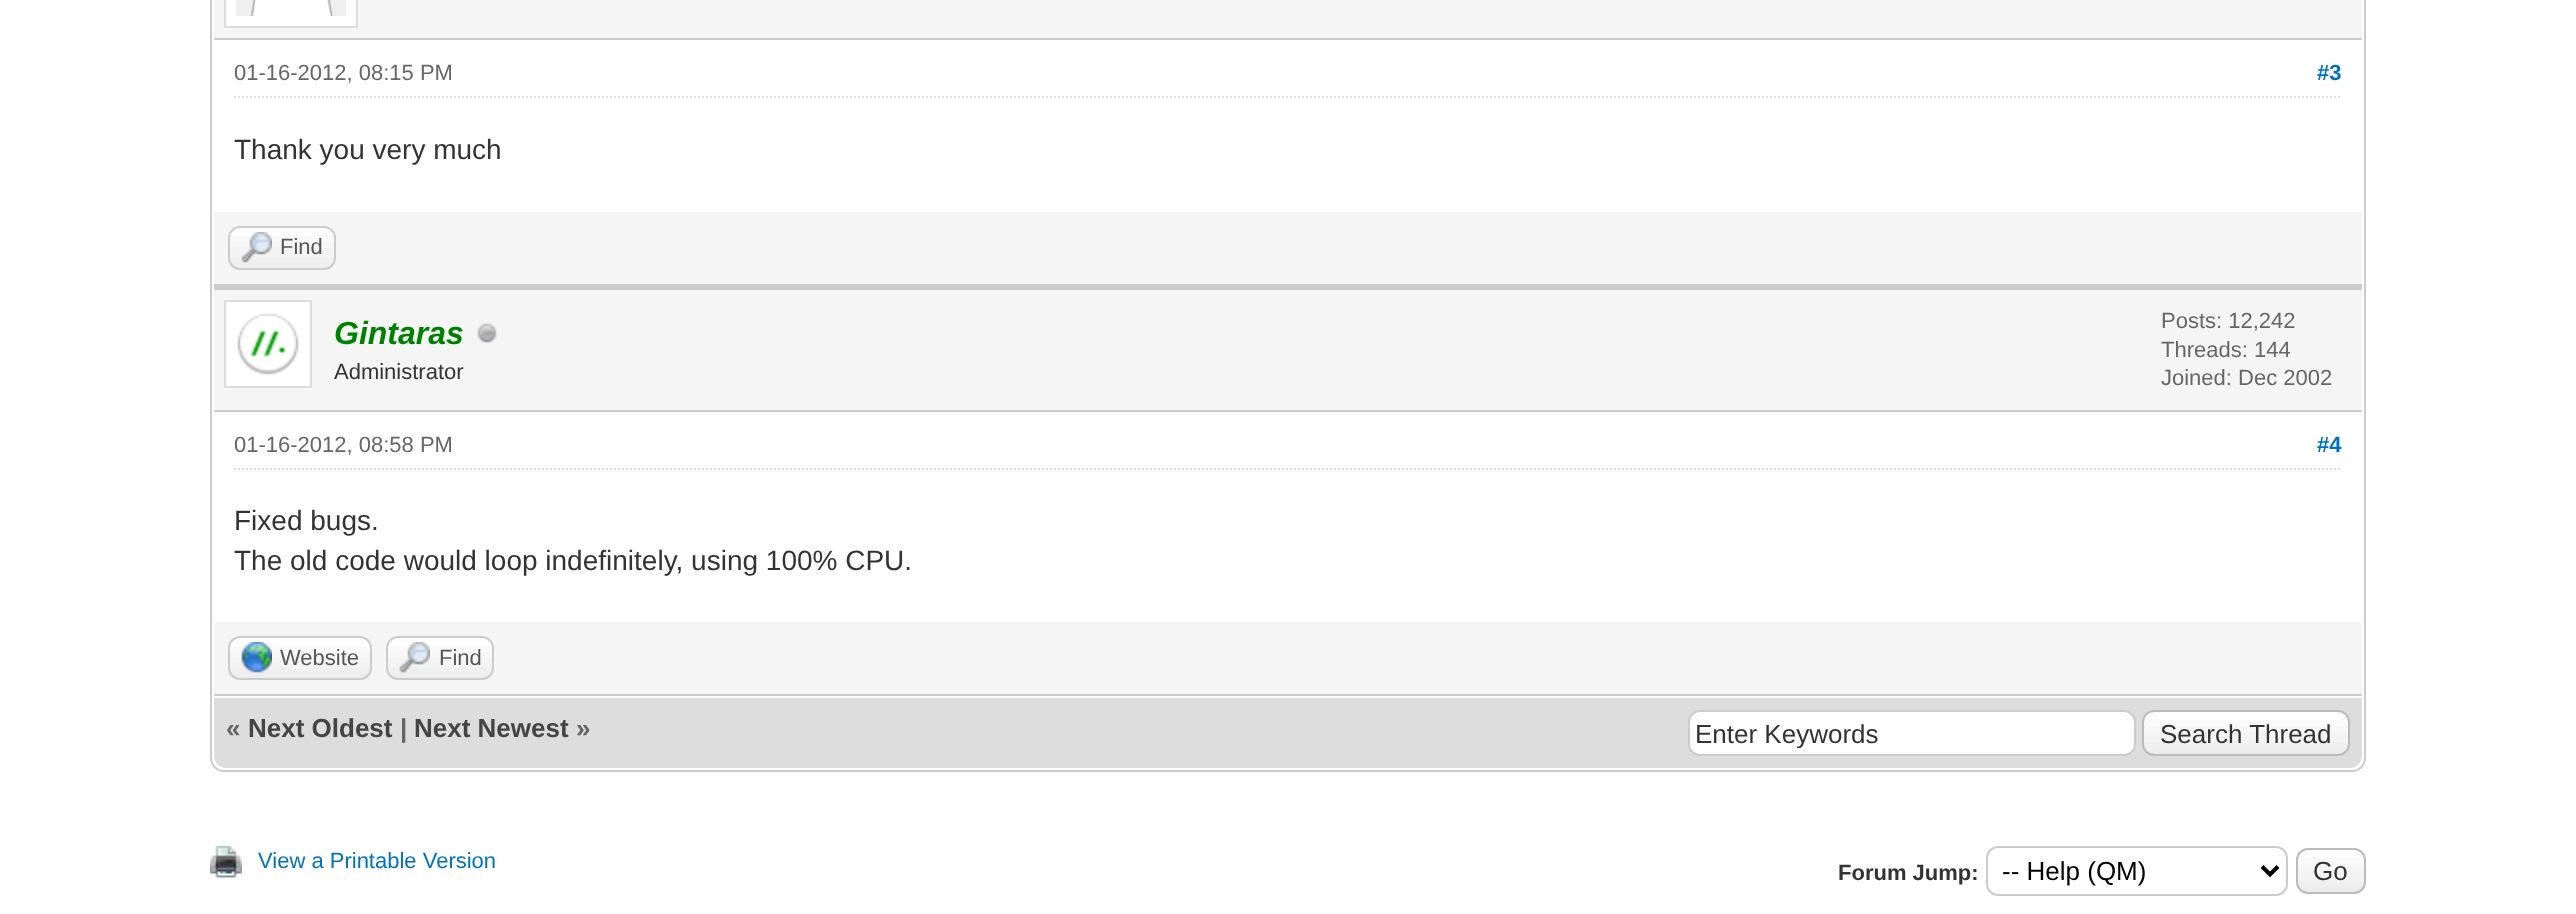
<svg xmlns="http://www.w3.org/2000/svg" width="2576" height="914">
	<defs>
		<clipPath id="clip1"><rect x="1696" y="718" width="432" height="30" /></clipPath>
	</defs>
	<rect width="100%" height="100%" fill="#FFFFFF" />
	<rect x="211" y="-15" width="2154" height="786" rx="13" fill="none" stroke="#CCCCCC" stroke-width="2" />
	<rect x="214" y="0" width="2148" height="38" fill="#F5F5F5" />
	<rect x="214" y="38" width="2148" height="2" fill="#CCCCCC" />
	<rect x="225" y="-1" width="132" height="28" fill="#FFFFFF" stroke="#DDDDDD" stroke-width="2" />
	<image x="236" y="0" width="110" height="16" href="assets/img1.png" />
	<path d="M234 97H2342" fill="none" stroke="#DDDDDD" stroke-width="2" stroke-dasharray="2 2" />
	<text x="234" y="80" font-family="Liberation Sans" font-size="22" fill="#666666">01-16-2012, 08:15 PM</text>
	<text x="2317" y="80" font-family="Liberation Sans" font-size="22" font-weight="700" fill="#0072BC">#3</text>
	<text x="234" y="159" font-family="Liberation Sans" font-size="28" fill="#333333">Thank you very much</text>
	<rect x="214" y="212" width="2148" height="72" fill="#F5F5F5" />
	<rect x="214" y="284" width="2148" height="6" fill="#CCCCCC" />
	<image x="228" y="228" width="108" height="41" href="assets/img2.png" />
	<rect x="229" y="227" width="106" height="42" rx="11" fill="none" stroke="#CCCCCC" stroke-width="2" />
	<image x="241" y="232" width="31" height="31" href="assets/img3.png" />
	<text x="280" y="254" font-family="Liberation Sans" font-size="22" fill="#555555">Find</text>
	<rect x="214" y="290" width="2148" height="120" fill="#F5F5F5" />
	<rect x="214" y="410" width="2148" height="2" fill="#CCCCCC" />
	<rect x="225" y="301" width="86" height="86" fill="#FFFFFF" stroke="#DDDDDD" stroke-width="2" />
	<image x="237" y="313" width="62" height="62" href="assets/img4.png" />
	<text x="334" y="344" font-family="Liberation Sans" font-size="32" font-weight="700" font-style="italic" fill="#008000">Gintaras</text>
	<image x="477" y="323" width="20" height="20" href="assets/img5.png" />
	<text x="334" y="379" font-family="Liberation Sans" font-size="22" fill="#333333">Administrator</text>
	<g font-family="Liberation Sans" font-size="22" fill="#666666">
		<text x="2161" y="328">Posts: 12,242</text>
		<text x="2161" y="357">Threads: 144</text>
		<text x="2161" y="385">Joined: Dec 2002</text>
	</g>
	<path d="M234 469H2342" fill="none" stroke="#DDDDDD" stroke-width="2" stroke-dasharray="2 2" />
	<text x="234" y="452" font-family="Liberation Sans" font-size="22" fill="#666666">01-16-2012, 08:58 PM</text>
	<text x="2317" y="452" font-family="Liberation Sans" font-size="22" font-weight="700" fill="#0072BC">#4</text>
	<g font-family="Liberation Sans" font-size="28" fill="#333333">
		<text x="234" y="530">Fixed bugs.</text>
		<text x="234" y="570">The old code would loop indefinitely, using 100% CPU.</text>
	</g>
	<rect x="214" y="622" width="2148" height="72" fill="#F5F5F5" />
	<rect x="214" y="694" width="2148" height="2" fill="#CCCCCC" />
	<image x="228" y="638" width="144" height="41" href="assets/img6.png" />
	<rect x="229" y="637" width="142" height="42" rx="11" fill="none" stroke="#CCCCCC" stroke-width="2" />
	<image x="241" y="642" width="31" height="31" href="assets/img7.png" />
	<text x="280" y="665" font-family="Liberation Sans" font-size="22" fill="#555555">Website</text>
	<image x="386" y="638" width="108" height="41" href="assets/img2.png" />
	<rect x="387" y="637" width="106" height="42" rx="11" fill="none" stroke="#CCCCCC" stroke-width="2" />
	<image x="399" y="642" width="31" height="31" href="assets/img3.png" />
	<text x="439" y="665" font-family="Liberation Sans" font-size="22" fill="#555555">Find</text>
	<path d="M214 696H2362V756C2362 762.5 2356.5 768 2350 768H226C219.5 768 214 762.5 214 756Z" fill="#DDDDDD" />
	<rect x="214" y="696" width="2148" height="2" fill="#FFFFFF" />
	<text x="226" y="737" font-family="Liberation Sans" font-size="26" font-weight="700" fill="#666666">«</text>
	<text x="248" y="737" font-family="Liberation Sans" font-size="26" font-weight="700" fill="#444444">Next Oldest</text>
	<text x="400" y="737" font-family="Liberation Sans" font-size="26" font-weight="700" fill="#666666">|</text>
	<text x="414" y="737" font-family="Liberation Sans" font-size="26" font-weight="700" fill="#444444">Next Newest</text>
	<text x="576" y="737" font-family="Liberation Sans" font-size="26" font-weight="700" fill="#666666">»</text>
	<rect x="1689" y="711" width="446" height="44" rx="11" fill="#FFFFFF" stroke="#CCCCCC" stroke-width="2" />
	<g clip-path="url(#clip1)">
		<text x="1695" y="743" font-family="Liberation Sans" font-size="26" fill="#333333">Enter Keywords</text>
	</g>
	<image x="2142" y="712" width="208" height="44" href="assets/img8.png" />
	<rect x="2143" y="711" width="206" height="44" rx="11" fill="none" stroke="#BBBBBB" stroke-width="2" />
	<text x="2160" y="743" font-family="Liberation Sans" font-size="26" fill="#333333">Search Thread</text>
	<image x="210" y="846" width="32" height="32" href="assets/img9.png" />
	<text x="258" y="868" font-family="Liberation Sans" font-size="22" fill="#0072BC">View a Printable Version</text>
	<text x="1838" y="880" font-family="Liberation Sans" font-size="22" font-weight="700" fill="#333333">Forum Jump:</text>
	<rect x="1987" y="847" width="300" height="48" rx="11" fill="none" stroke="#CCCCCC" stroke-width="2" />
	<path d="M2262 866.5L2270 874.5L2278 866.5" fill="none" stroke="#000000" stroke-width="4" />
	<text x="2002" y="880" font-family="Liberation Sans" font-size="26" fill="#000000">-- Help (QM)</text>
	<image x="2296" y="850" width="70" height="44" href="assets/img10.png" />
	<rect x="2297" y="849" width="68" height="44" rx="11" fill="none" stroke="#BBBBBB" stroke-width="2" />
	<text x="2313" y="880" font-family="Liberation Sans" font-size="26" fill="#333333">Go</text>
</svg>
